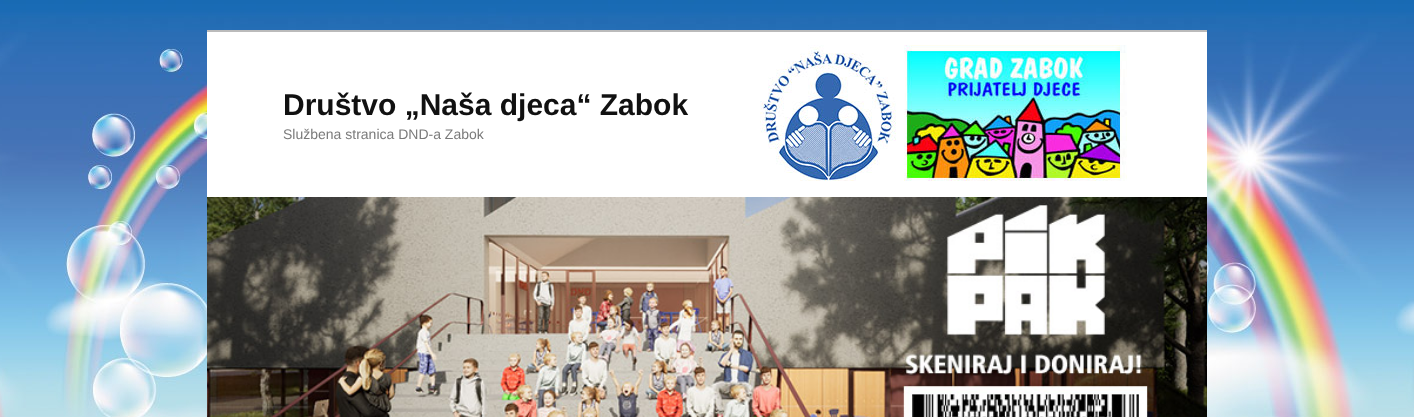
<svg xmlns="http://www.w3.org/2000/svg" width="1414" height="417">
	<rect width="100%" height="100%" fill="#FFFFFF" />
	<image x="0" y="0" width="1414" height="417" href="assets/img1.png" />
	<rect x="207" y="32" width="1000" height="165" fill="#FFFFFF" />
	<rect x="207" y="30" width="1000" height="2" fill="#BBBBBB" />
	<text x="283" y="115" font-family="Liberation Sans" font-size="30" font-weight="700" fill="#111111">Društvo „Naša djeca“ Zabok</text>
	<text x="283" y="139" font-family="Liberation Sans" font-size="14" fill="#7A7A7A">Službena stranica DND-a Zabok</text>
	<image x="207" y="197" width="1000" height="220" href="assets/img2.png" />
	<image x="760" y="45" width="367" height="136" href="assets/img3.png" />
</svg>
